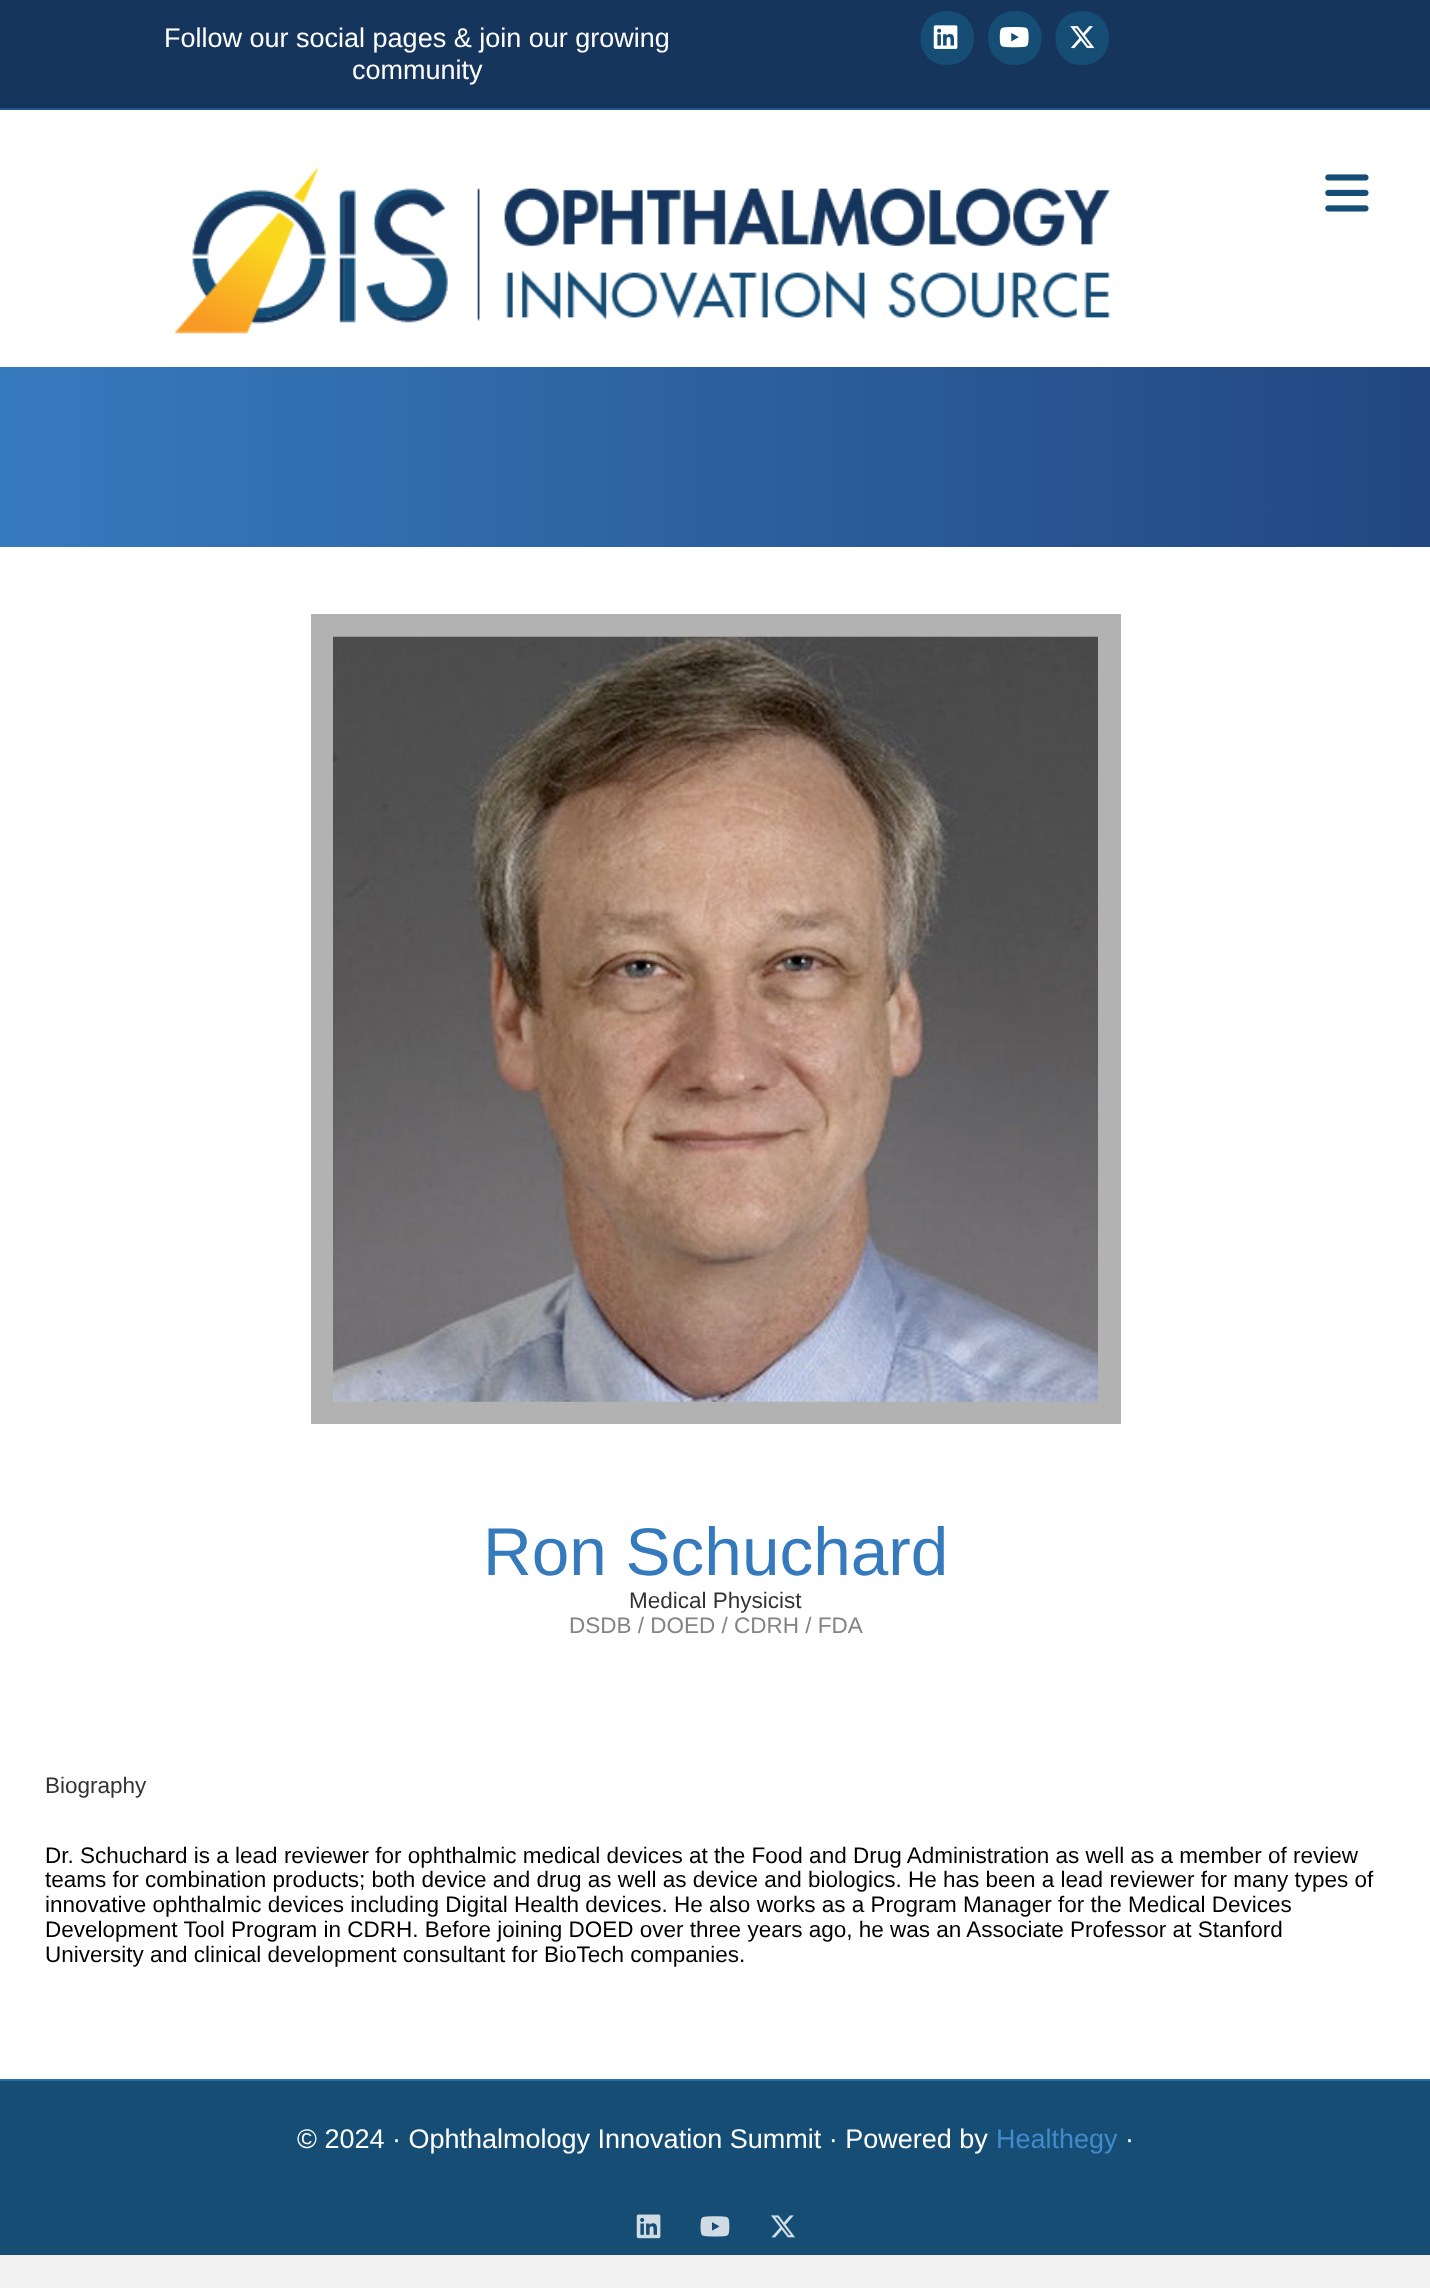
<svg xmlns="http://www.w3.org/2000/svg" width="1430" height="2288">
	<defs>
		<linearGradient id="g1" gradientUnits="userSpaceOnUse" x1="0" y1="457" x2="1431" y2="457"><stop offset="0" stop-color="#367ABE" /><stop offset="1" stop-color="#224780" /></linearGradient>
	</defs>
	<rect width="100%" height="100%" fill="#F2F2F2" />
	<rect x="0" y="0" width="1430" height="108" fill="#16355C" />
	<rect x="0" y="108" width="1430" height="2" fill="#235492" />
	<g font-family="Liberation Sans" font-size="27" fill="#FFFFFF">
		<text x="164" y="47">Follow our social pages &amp; join our growing</text>
		<text x="352" y="79">community</text>
	</g>
	<path d="M947 65C983 65 983 11 947 11C912 11 911 65 947 65Z" fill="#164D75" />
	<image x="933" y="25" width="25" height="24" href="assets/img1.png" />
	<path d="M1015 65C1051 65 1050 11 1015 11C979 11 979 65 1015 65Z" fill="#164D75" />
	<image x="999" y="27" width="30" height="21" href="assets/img2.png" />
	<path d="M1082 65C1118 65 1118 11 1082 11C1047 11 1046 65 1082 65Z" fill="#164D75" />
	<image x="1070" y="26" width="25" height="23" href="assets/img3.png" />
	<rect x="0" y="110" width="1430" height="257" fill="#FFFFFF" />
	<image x="174" y="166" width="937" height="168" href="assets/img4.png" />
	<image x="1325" y="174" width="44" height="38" href="assets/img5.png" />
	<rect x="0" y="547" width="1430" height="1532" fill="#FFFFFF" />
	<rect x="0" y="367" width="1430" height="180" fill="url(#g1)" />
	<rect x="311" y="614" width="810" height="810" fill="#B2B2B2" />
	<image x="333" y="636" width="765" height="766" href="assets/img6.png" />
	<text x="483" y="1575" font-family="Liberation Sans" font-size="67.5" fill="#367ABE">Ron Schuchard</text>
	<text x="629" y="1608" font-family="Liberation Sans" font-size="22.5" fill="#333333">Medical Physicist</text>
	<text x="569" y="1633" font-family="Liberation Sans" font-size="22.5" fill="#848484">DSDB / DOED / CDRH / FDA</text>
	<text x="45" y="1793" font-family="Liberation Sans" font-size="22.5" fill="#333333">Biography</text>
	<g font-family="Liberation Sans" font-size="22.5" fill="#000000">
		<text x="45" y="1863">Dr. Schuchard is a lead reviewer for ophthalmic medical devices at the Food and Drug Administration as well as a member of review</text>
		<text x="45" y="1887">teams for combination products; both device and drug as well as device and biologics. He has been a lead reviewer for many types of</text>
		<text x="45" y="1912">innovative ophthalmic devices including Digital Health devices. He also works as a Program Manager for the Medical Devices</text>
		<text x="45" y="1937">Development Tool Program in CDRH. Before joining DOED over three years ago, he was an Associate Professor at Stanford</text>
		<text x="45" y="1962">University and clinical development consultant for BioTech companies.</text>
	</g>
	<rect x="0" y="2081" width="1430" height="174" fill="#164D75" />
	<rect x="0" y="2079" width="1430" height="2" fill="#2072AD" />
	<text x="297" y="2148" font-family="Liberation Sans" font-size="27" fill="#FFFFFF">© 2024 · Ophthalmology Innovation Summit · Powered by</text>
	<text x="996" y="2148" font-family="Liberation Sans" font-size="27" fill="#428BCA">Healthegy</text>
	<text x="1125" y="2148" font-family="Liberation Sans" font-size="27" fill="#FFFFFF">·</text>
	<image x="636" y="2214" width="25" height="25" href="assets/img7.png" />
	<image x="700" y="2216" width="30" height="21" href="assets/img8.png" />
	<image x="771" y="2215" width="24" height="23" href="assets/img9.png" />
</svg>
